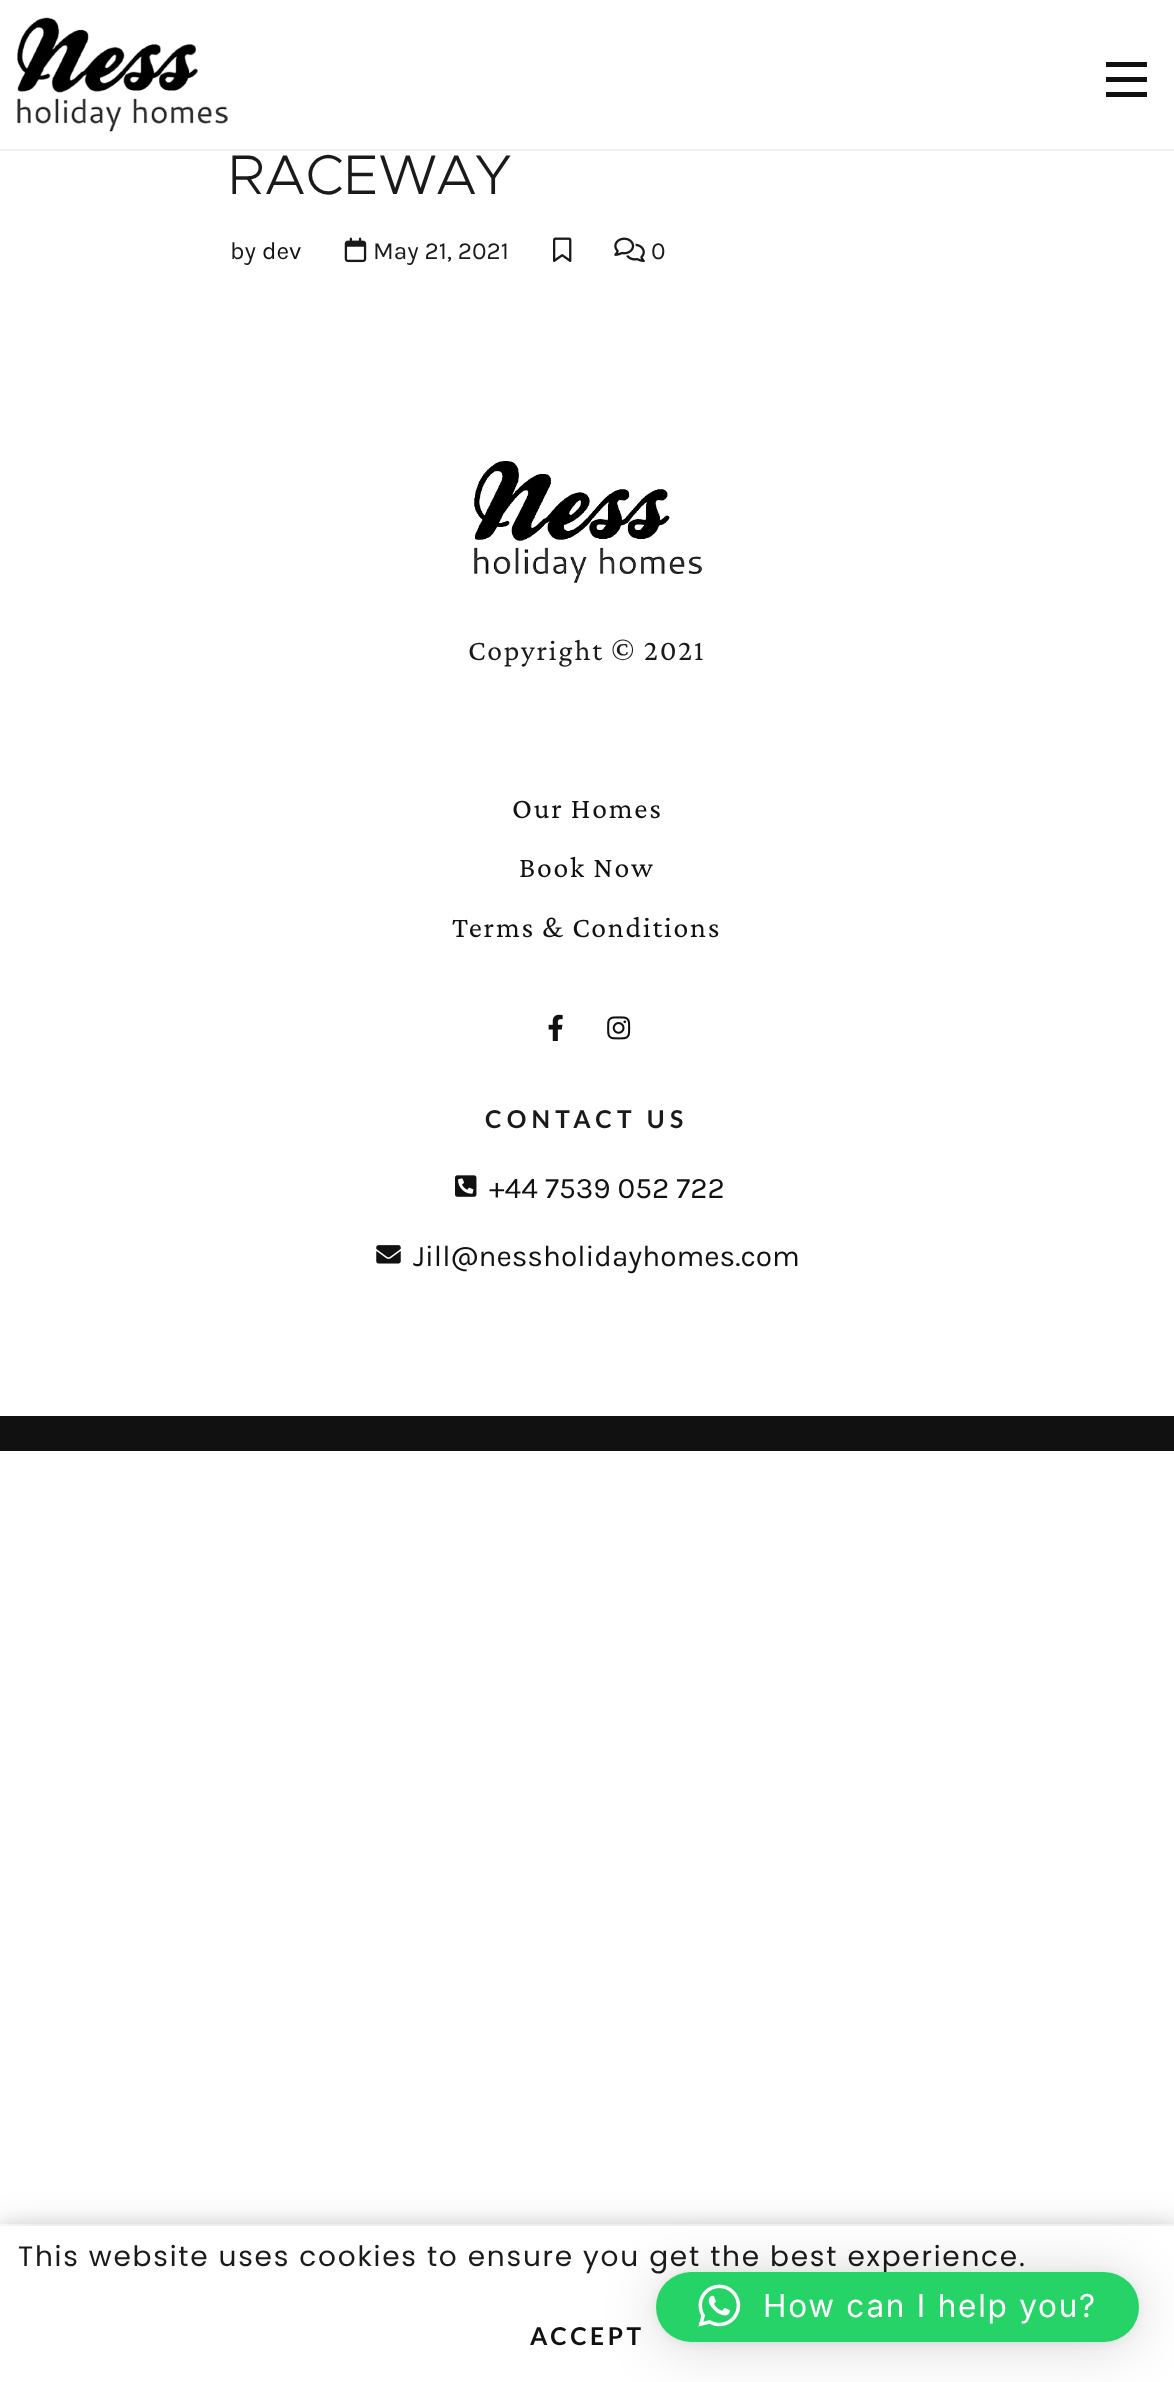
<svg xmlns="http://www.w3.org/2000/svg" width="1174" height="2382">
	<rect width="100%" height="100%" fill="#FFFFFF" />
	<rect x="0" y="149" width="1174" height="2" fill="#F1F1F1" />
	<image x="17" y="17" width="211" height="115" href="assets/img1.png" />
	<rect x="1106" y="62" width="41" height="5" fill="#111111" />
	<rect x="1106" y="77" width="41" height="5" fill="#111111" />
	<rect x="1106" y="92" width="41" height="5" fill="#111111" />
	<text x="228" y="194" font-family="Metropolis" font-size="56" font-weight="300" fill="#1A1A1A">RACEWAY</text>
	<text x="230" y="259" font-family="Karla" font-size="24.5" fill="#1A1A1A">by</text>
	<text x="262" y="259" font-family="Karla" font-size="24.5" fill="#111111">dev</text>
	<image x="344" y="237" width="23" height="26" href="assets/img2.png" />
	<text x="373" y="259" font-family="Karla" font-size="24.5" fill="#1A1A1A">May 21, 2021</text>
	<image x="553" y="237" width="19" height="25" href="assets/img3.png" />
	<image x="614" y="237" width="31" height="26" href="assets/img4.png" />
	<text x="651" y="259" font-family="Karla" font-size="24.5" fill="#1A1A1A">0</text>
	<image x="474" y="460" width="228" height="123" href="assets/img5.png" />
	<text x="468" y="660" font-family="Crimson Pro" font-size="29.75" letter-spacing="1.75" fill="#1A1A1A">Copyright © 2021</text>
	<g font-family="Crimson Pro" font-size="29.75" letter-spacing="1.75" fill="#111111">
		<text x="512" y="818">Our Homes</text>
		<text x="519" y="877">Book Now</text>
		<text x="452" y="937">Terms &amp; Conditions</text>
	</g>
	<image x="548" y="1014" width="15" height="27" href="assets/img6.png" />
	<image x="607" y="1016" width="24" height="24" href="assets/img7.png" />
	<text x="485" y="1128" font-family="Lato" font-size="24.5" font-weight="700" letter-spacing="5.25" fill="#1A1A1A">CONTACT US</text>
	<image x="455" y="1175" width="22" height="22" href="assets/img8.png" />
	<text x="489" y="1198" font-family="Karla" font-size="29.75" fill="#111111">+44 7539 052 722</text>
	<image x="376" y="1245" width="25" height="19" href="assets/img9.png" />
	<text x="413" y="1266" font-family="Karla" font-size="29.75" fill="#111111">Jill@nessholidayhomes.com</text>
	<rect x="0" y="1416" width="1174" height="35" fill="#111111" />
	<rect x="0" y="2223" width="1174" height="159" fill="#ACABAB" fill-opacity="0.3" filter="blur(9px)" />
	<rect x="0" y="2224" width="1174" height="2" fill="#FFFFFF" />
	<rect x="-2" y="2235" width="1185" height="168" fill="#000000" fill-opacity="0.2" filter="blur(20px)" />
	<rect x="0" y="2226" width="1174" height="156" fill="#FFFFFF" />
	<text x="18" y="2266" font-family="Poppins" font-size="28" letter-spacing="1.75" fill="#1A1A1A">This website uses cookies to ensure you get the best experience.</text>
	<text x="530" y="2345" font-family="Lato" font-size="24.5" font-weight="700" letter-spacing="3.5" fill="#111111">ACCEPT</text>
	<rect x="656" y="2275" width="483" height="70" rx="35" fill="#000000" fill-opacity="0.16" filter="blur(28px)" />
	<rect x="656" y="2273" width="483" height="70" rx="35" fill="#000000" fill-opacity="0.06" filter="blur(5px)" />
	<rect x="656" y="2272" width="483" height="70" rx="35" fill="#25D366" />
	<image x="698" y="2284" width="43" height="43" href="assets/img10.png" />
	<text x="763" y="2317" font-family="Inter" font-size="31.5" letter-spacing="1.75" fill="#FFFFFF">How can I help you?</text>
</svg>
